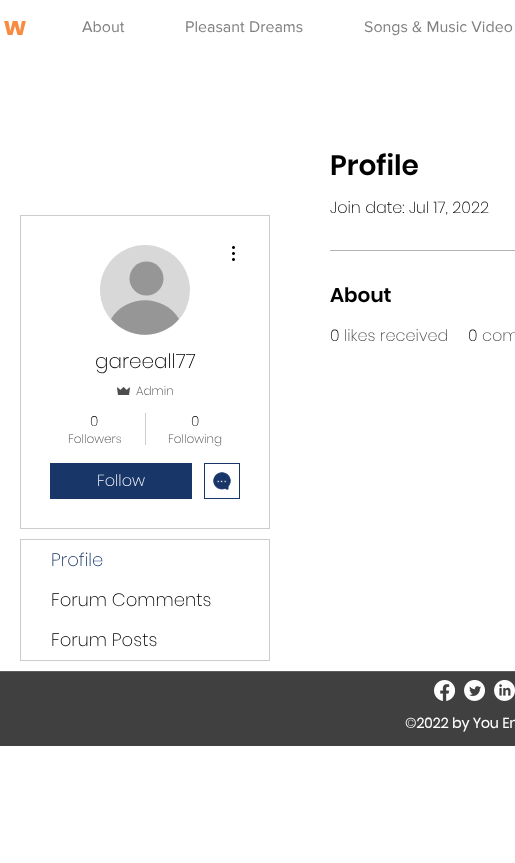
<svg xmlns="http://www.w3.org/2000/svg" width="515" height="863">
	<rect width="100%" height="100%" fill="#FFFFFF" />
	<text x="4" y="35" font-family="'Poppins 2'" font-size="25" font-weight="700" fill="#F98B40">w</text>
	<g font-family="Proxima Nova" font-size="16" fill="#808080">
		<text x="82" y="32">About</text>
		<text x="185" y="32">Pleasant Dreams</text>
		<text x="364" y="32">Songs &amp; Music Video</text>
	</g>
	<text x="330" y="175" font-family="Poppins" font-size="28" font-weight="600" fill="#000000">Profile</text>
	<text x="330" y="213" font-family="Poppins" font-size="16" font-weight="200" fill="#000000">Join date: Jul 17, 2022</text>
	<rect x="330" y="250" width="185" height="1" fill="#B3B3B3" />
	<text x="330" y="302" font-family="Poppins" font-size="20" font-weight="600" fill="#000000">About</text>
	<text x="330" y="341" font-family="Poppins" font-size="16" font-weight="200" fill="#000000">0</text>
	<text x="344" y="341" font-family="Poppins" font-size="16" font-weight="200" fill="#4D4D4D">likes received</text>
	<text x="468" y="341" font-family="Poppins" font-size="16" font-weight="200" fill="#000000">0</text>
	<text x="482" y="341" font-family="Poppins" font-size="16" font-weight="200" fill="#4D4D4D">com</text>
	<rect x="20.5" y="215.5" width="249" height="313" fill="none" stroke="#CCCCCC" />
	<circle cx="145" cy="290" r="45" fill="#D8D8D8" />
	<circle cx="146.5" cy="278.5" r="17" fill="#969696" />
	<path d="M179 319C161 340 129 340 111 319C126 294 164 294 179 319Z" fill="#969696" />
	<image x="232" y="246" width="3" height="15" href="assets/img1.png" />
	<text x="95" y="368" font-family="Poppins" font-size="20" font-weight="200" fill="#000000">gareeall77</text>
	<image x="117" y="387" width="13" height="8" href="assets/img2.png" />
	<text x="136" y="395" font-family="Poppins" font-size="12" font-weight="200" fill="#4D4D4D">Admin</text>
	<text x="90" y="426" font-family="Poppins" font-size="14" font-weight="200" fill="#000000">0</text>
	<text x="68" y="443" font-family="Poppins" font-size="12" font-weight="200" fill="#4D4D4D">Followers</text>
	<rect x="145" y="413" width="1" height="32" fill="#CCCCCC" />
	<text x="191" y="426" font-family="Poppins" font-size="14" font-weight="200" fill="#000000">0</text>
	<text x="168" y="443" font-family="Poppins" font-size="12" font-weight="200" fill="#4D4D4D">Following</text>
	<rect x="50" y="463" width="142" height="36" fill="#193669" />
	<text x="97" y="486" font-family="Poppins" font-size="16" font-weight="200" fill="#FFFFFF">Follow</text>
	<rect x="204.5" y="463.5" width="35" height="35" fill="none" stroke="#193669" />
	<image x="213" y="472" width="18" height="18" href="assets/img3.png" />
	<rect x="20.5" y="539.5" width="249" height="121" fill="none" stroke="#CCCCCC" />
	<text x="51" y="566" font-family="Poppins" font-size="18" font-weight="200" fill="#193669">Profile</text>
	<g font-family="Poppins" font-size="18" font-weight="200" fill="#000000">
		<text x="51" y="606">Forum Comments</text>
		<text x="51" y="646">Forum Posts</text>
	</g>
	<rect x="0" y="672" width="515" height="74" fill="#404040" />
	<rect x="0" y="671" width="515" height="1" fill="#5D5D5D" />
	<image x="434" y="680" width="21" height="21" href="assets/img4.png" />
	<image x="464" y="680" width="21" height="21" href="assets/img5.png" />
	<image x="494" y="680" width="21" height="21" href="assets/img6.png" />
	<text x="405" y="728" font-family="Poppins" font-size="14" font-weight="700" fill="#FFFFFF">©2022 by You En</text>
</svg>
